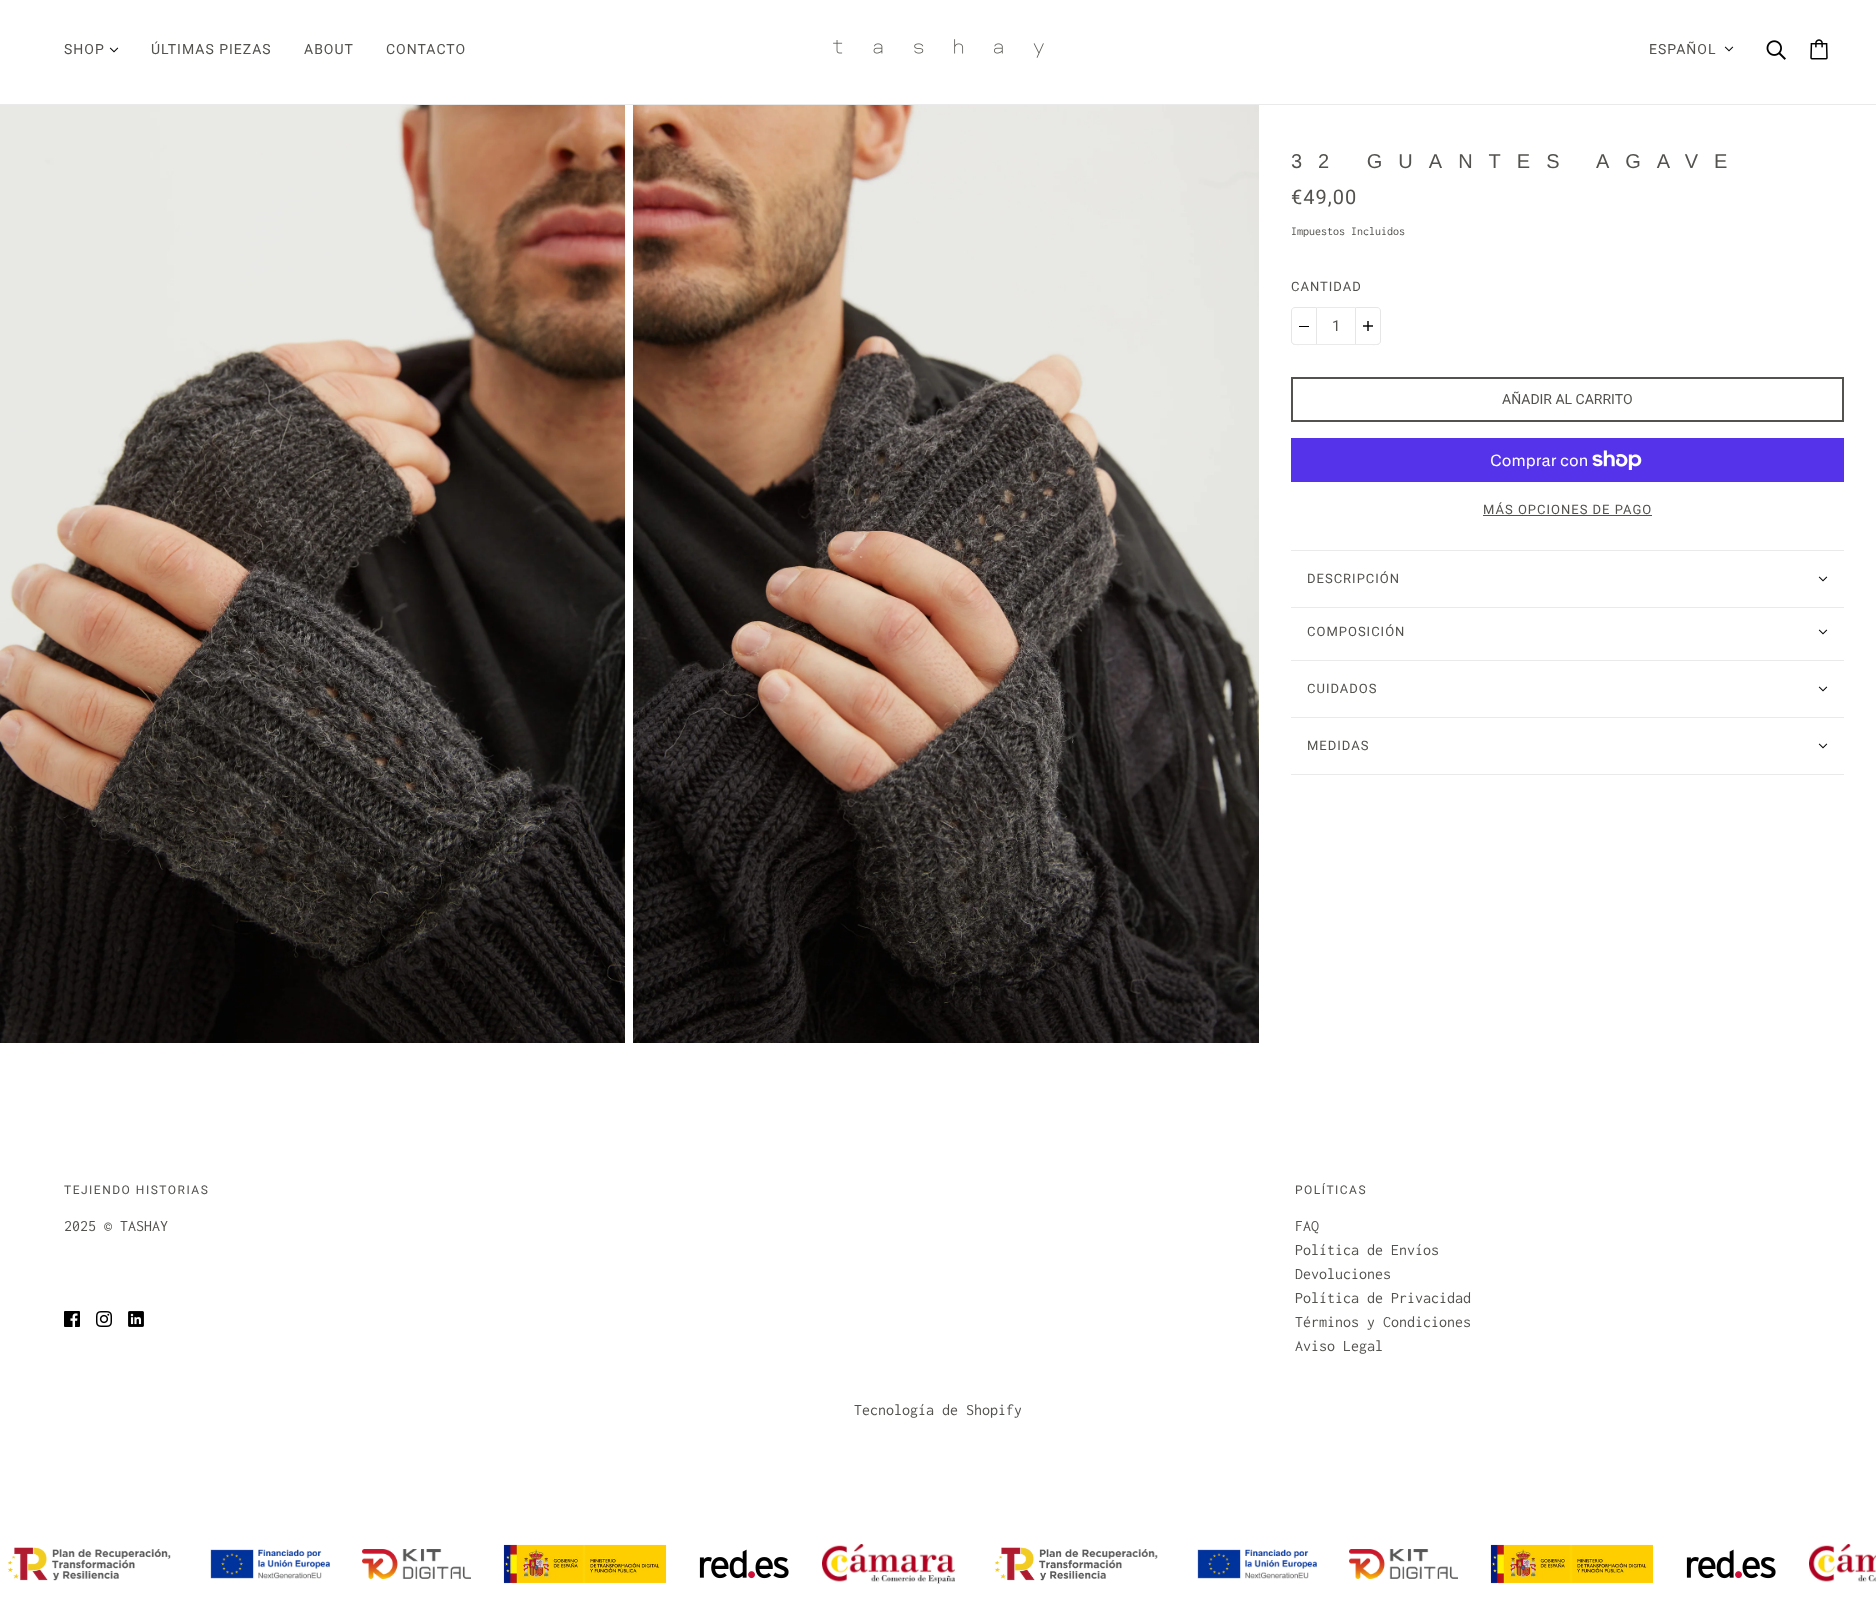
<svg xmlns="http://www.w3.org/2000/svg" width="1876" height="1618">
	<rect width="100%" height="100%" fill="#FFFFFF" />
	<rect x="0" y="104" width="1876" height="1" fill="#EAEAEA" />
	<text x="64" y="54" font-family="Roboto" font-size="14" letter-spacing="1" fill="#53524E">SHOP</text>
	<image x="109" y="47" width="10" height="6" href="assets/img1.png" />
	<g font-family="Roboto" font-size="14" letter-spacing="1" fill="#53524E">
		<text x="151" y="54">ÚLTIMAS PIEZAS</text>
		<text x="304" y="54">ABOUT</text>
		<text x="386" y="54">CONTACTO</text>
	</g>
	<image x="833" y="39" width="211" height="19" href="assets/img2.png" />
	<text x="1649" y="54" font-family="Roboto" font-size="14" letter-spacing="1" fill="#53524E">ESPAÑOL</text>
	<image x="1724" y="46" width="10" height="6" href="assets/img1.png" />
	<image x="1766" y="40" width="20" height="20" href="assets/img3.png" />
	<image x="1810" y="39" width="18" height="21" href="assets/img4.png" />
	<image x="0" y="105" width="625" height="938" href="assets/img5.png" />
	<image x="633" y="105" width="626" height="938" href="assets/img6.png" />
	<text x="1291" y="168" font-family="Liberation Sans" font-size="20" letter-spacing="16" fill="#53524E">32 GUANTES AGAVE</text>
	<text x="1291" y="204" font-family="Roboto" font-size="20" letter-spacing="1" fill="#53524E">€49,00</text>
	<text x="1291" y="235" font-family="Inconsolata" font-size="12" fill="#53524E">Impuestos Incluidos</text>
	<text x="1291" y="291" font-family="Roboto" font-size="13" letter-spacing="1" fill="#53524E">CANTIDAD</text>
	<path d="M1295 307.5H1316.5V344.5H1295C1293 344.5 1291.5 343 1291.5 341V311C1291.5 309 1293 307.5 1295 307.5Z" fill="none" stroke="#E6E6E6" />
	<path d="M1291 340C1291 346.5 1297.5 345 1302.5 345H1317V344H1295C1293 344 1291 342 1291 340Z" fill="#EAEAEA" />
	<rect x="1299" y="326" width="10" height="1" fill="#000000" />
	<rect x="1317" y="307" width="38" height="1" fill="#EAEAEA" />
	<rect x="1317" y="344" width="38" height="1" fill="#EAEAEA" />
	<text x="1332" y="331" font-family="Roboto" font-size="15" fill="#53524E">1</text>
	<path d="M1355.5 307.5H1377C1379 307.5 1380.5 309 1380.5 311V341C1380.5 343 1379 344.5 1377 344.5H1355.5Z" fill="none" stroke="#E6E6E6" />
	<path d="M1355 344V345H1369.5C1374.5 345 1381 346.5 1381 340C1381 342 1379 344 1377 344Z" fill="#EAEAEA" />
	<image x="1363" y="321" width="10" height="10" href="assets/img7.png" />
	<rect x="1292" y="378" width="551" height="43" fill="none" stroke="#53524E" stroke-width="2" />
	<text x="1502" y="404" font-family="Roboto" font-size="14" fill="#53524E">AÑADIR AL CARRITO</text>
	<rect x="1291" y="438" width="553" height="44" fill="#5433EB" />
	<text x="1490" y="466" font-family="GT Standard" font-size="16" fill="#FFFFFF">Comprar con</text>
	<image x="1592" y="450" width="50" height="20" href="assets/img8.png" />
	<text x="1483" y="514" font-family="Roboto" font-size="13" letter-spacing="1" fill="#53524E">MÁS OPCIONES DE PAGO</text>
	<rect x="1483" y="515" width="169" height="1" fill="#53524E" />
	<rect x="1291" y="550" width="553" height="1" fill="#EAEAEA" />
	<rect x="1291" y="607" width="553" height="1" fill="#EAEAEA" />
	<text x="1307" y="583" font-family="Roboto" font-size="13" letter-spacing="1" fill="#53524E">DESCRIPCIÓN</text>
	<image x="1818" y="576" width="10" height="6" href="assets/img1.png" />
	<rect x="1291" y="660" width="553" height="1" fill="#EAEAEA" />
	<text x="1307" y="636" font-family="Roboto" font-size="13" letter-spacing="1" fill="#53524E">COMPOSICIÓN</text>
	<image x="1818" y="629" width="10" height="6" href="assets/img1.png" />
	<rect x="1291" y="717" width="553" height="1" fill="#EAEAEA" />
	<text x="1307" y="693" font-family="Roboto" font-size="13" letter-spacing="1" fill="#53524E">CUIDADOS</text>
	<image x="1818" y="686" width="10" height="6" href="assets/img1.png" />
	<rect x="1291" y="774" width="553" height="1" fill="#EAEAEA" />
	<text x="1307" y="750" font-family="Roboto" font-size="13" letter-spacing="1" fill="#53524E">MEDIDAS</text>
	<image x="1818" y="743" width="10" height="6" href="assets/img1.png" />
	<text x="64" y="1194" font-family="Roboto" font-size="12" letter-spacing="1.5" fill="#53524E">TEJIENDO HISTORIAS</text>
	<text x="64" y="1231" font-family="Inconsolata" font-size="16" fill="#53524E">2025 © TASHAY</text>
	<image x="64" y="1311" width="16" height="16" href="assets/img9.png" />
	<image x="96" y="1311" width="16" height="16" href="assets/img10.png" />
	<image x="128" y="1311" width="16" height="16" href="assets/img11.png" />
	<text x="1295" y="1194" font-family="Roboto" font-size="12" letter-spacing="1.5" fill="#53524E">POLÍTICAS</text>
	<g font-family="Inconsolata" font-size="16" fill="#53524E">
		<text x="1295" y="1231">FAQ</text>
		<text x="1295" y="1255">Política de Envíos</text>
		<text x="1295" y="1279">Devoluciones</text>
		<text x="1295" y="1303">Política de Privacidad</text>
		<text x="1295" y="1327">Términos y Condiciones</text>
		<text x="1295" y="1351">Aviso Legal</text>
		<text x="854" y="1415">Tecnología de Shopify</text>
	</g>
	<image x="8" y="1547" width="163" height="34" href="assets/img12.png" />
	<image x="210" y="1549" width="120" height="30" href="assets/img13.png" />
	<image x="362" y="1549" width="109" height="30" href="assets/img14.png" />
	<image x="503" y="1544" width="164" height="40" href="assets/img15.png" />
	<image x="699" y="1549" width="90" height="30" href="assets/img16.png" />
	<image x="822" y="1544" width="133" height="40" href="assets/img17.png" />
	<image x="994" y="1547" width="164" height="34" href="assets/img18.png" />
	<image x="1197" y="1549" width="120" height="30" href="assets/img13.png" />
	<image x="1349" y="1549" width="109" height="30" href="assets/img14.png" />
	<image x="1490" y="1544" width="164" height="40" href="assets/img15.png" />
	<image x="1686" y="1549" width="90" height="30" href="assets/img16.png" />
	<image x="1809" y="1544" width="67" height="38" href="assets/img19.png" />
</svg>
